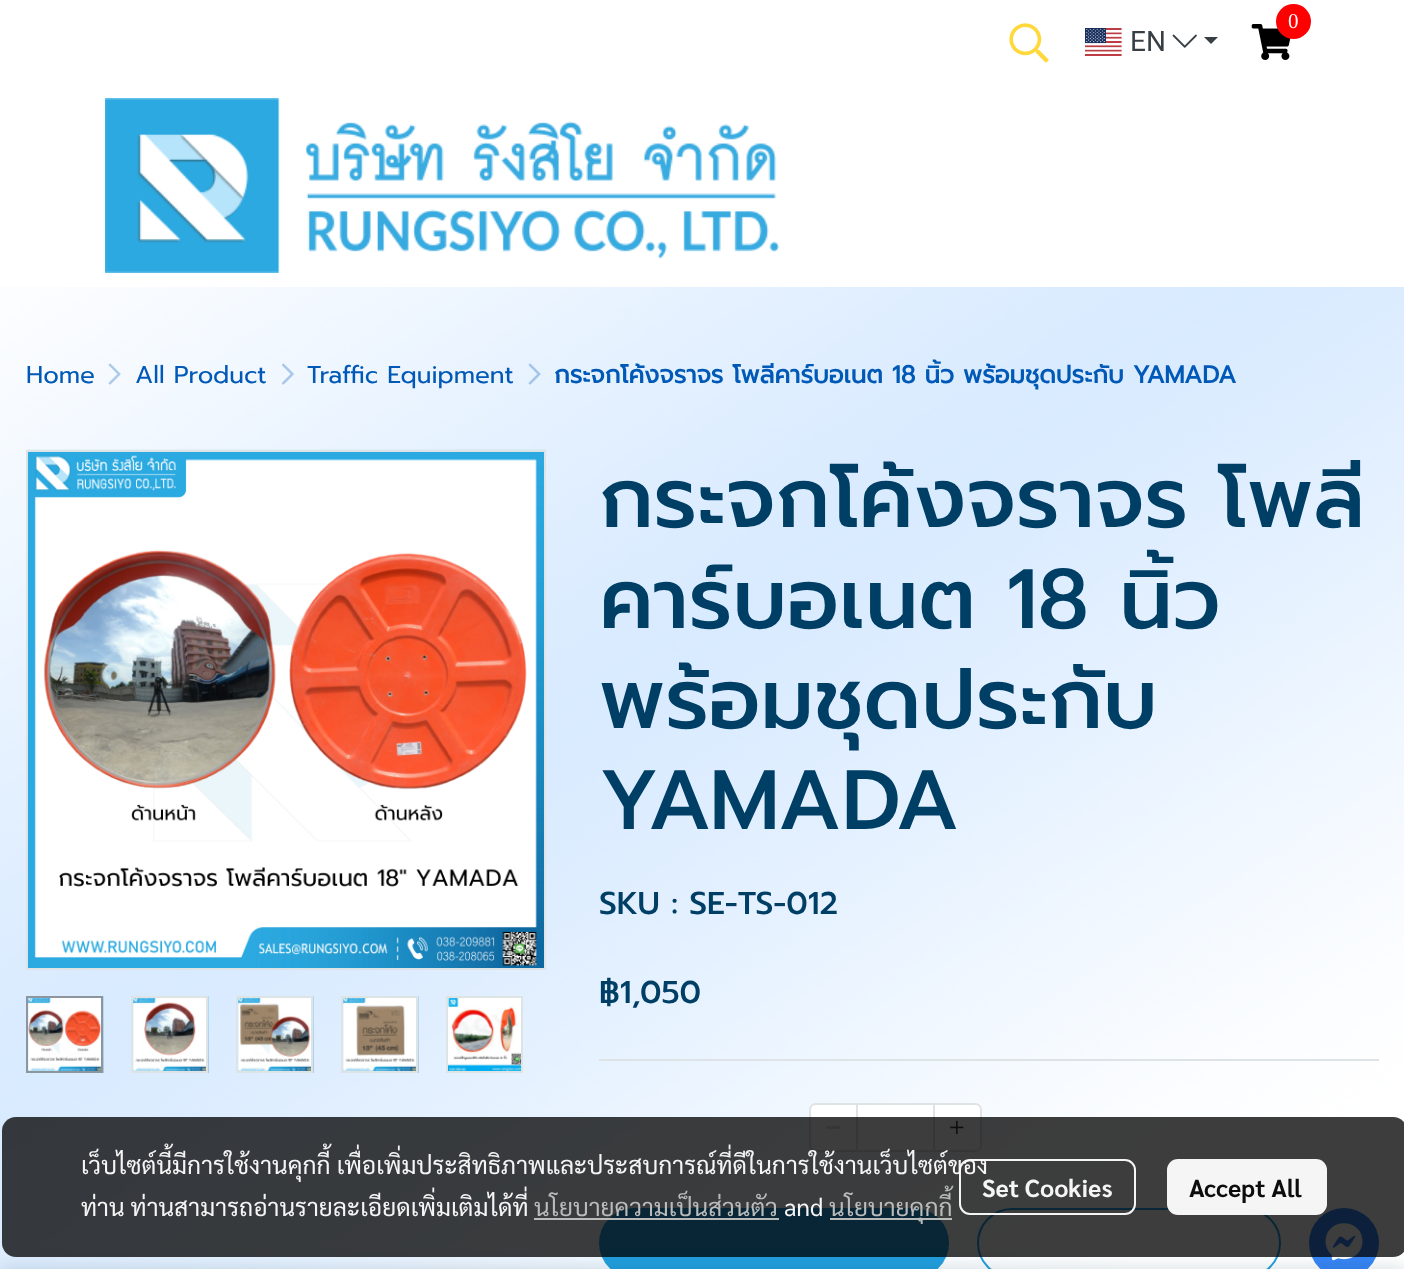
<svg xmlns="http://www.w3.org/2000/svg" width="1404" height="1269">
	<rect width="100%" height="100%" fill="#FFFFFF" />
	<image x="0" y="287" width="1404" height="982" href="assets/img1.png" />
	<image x="1251" y="24" width="40" height="36" href="assets/img2.png" />
	<circle cx="1293.5" cy="21.5" r="17.5" fill="#FF0000" />
	<text x="1288" y="28" font-family="Liberation Serif" font-size="21" fill="#FFFFFF">0</text>
	<image x="1009" y="23" width="40" height="40" href="assets/img3.png" />
	<image x="1085" y="28" width="37" height="28" href="assets/img4.png" />
	<text x="1130" y="51" font-family="Roboto" font-size="28" fill="#373E44">EN</text>
	<image x="1172" y="34" width="25" height="14" href="assets/img5.png" />
	<path d="M1204 37H1218L1211 44Z" fill="#373E44" />
	<image x="105" y="98" width="674" height="175" href="assets/img6.png" />
	<text x="26" y="383" font-family="Prompt" font-size="24.5" fill="#0059B6">Home</text>
	<image x="108" y="363" width="13" height="22" href="assets/img7.png" />
	<text x="135" y="383" font-family="Prompt" font-size="24.5" fill="#0059B6">All Product</text>
	<image x="282" y="363" width="12" height="22" href="assets/img8.png" />
	<text x="307" y="383" font-family="Prompt" font-size="24.5" fill="#0059B6">Traffic Equipment</text>
	<image x="528" y="363" width="13" height="22" href="assets/img9.png" />
	<text x="554" y="383" font-family="Prompt" font-size="24.5" font-weight="700" fill="#0059B6">กระจกโค้งจราจร โพลีคาร์บอเนต 18 นิ้ว พร้อมชุดประกับ YAMADA</text>
	<image x="26" y="449" width="520" height="519" href="assets/img10.png" />
	<rect x="27" y="451" width="518" height="518" fill="none" stroke="#DEE3E6" stroke-width="2" />
	<image x="28" y="996" width="76" height="77" href="assets/img11.png" />
	<rect x="27" y="997" width="75" height="75" fill="none" stroke="#8D969E" stroke-width="2" />
	<image x="133" y="996" width="76" height="77" href="assets/img12.png" />
	<rect x="132" y="997" width="75" height="75" fill="none" stroke="#DEE3E6" stroke-width="2" />
	<image x="238" y="996" width="76" height="77" href="assets/img13.png" />
	<rect x="237" y="997" width="75" height="75" fill="none" stroke="#DEE3E6" stroke-width="2" />
	<image x="343" y="996" width="76" height="77" href="assets/img14.png" />
	<rect x="342" y="997" width="75" height="75" fill="none" stroke="#DEE3E6" stroke-width="2" />
	<image x="448" y="998" width="73" height="73" href="assets/img15.png" />
	<rect x="447" y="997" width="75" height="75" fill="none" stroke="#DEE3E6" stroke-width="2" />
	<g font-family="Prompt" font-size="84" font-weight="500" fill="#003F65">
		<text x="599" y="527">กระจกโค้งจราจร โพลี</text>
		<text x="599" y="628">คาร์บอเนต 18 นิ้ว</text>
		<text x="599" y="728">พร้อมชุดประกับ</text>
		<text x="599" y="829">YAMADA</text>
	</g>
	<g font-family="Prompt" font-size="31.5" font-weight="500" fill="#003F65">
		<text x="599" y="914">SKU : SE-TS-012</text>
		<text x="599" y="1003">฿1,050</text>
	</g>
	<rect x="599" y="1059" width="780" height="2" fill="#DEE3E6" />
	<path d="M816 1104H857V1151H816C812.5 1151 810 1148.5 810 1145V1110C810 1106.5 812.5 1104 816 1104Z" fill="#FFFFFF" stroke="#DEE3E6" stroke-width="2" />
	<rect x="826" y="1126" width="14" height="3" fill="#DEE3E6" />
	<path d="M934 1104H975C978.5 1104 981 1106.5 981 1110V1145C981 1148.5 978.5 1151 975 1151H934Z" fill="#FFFFFF" stroke="#DEE3E6" stroke-width="2" />
	<rect x="857" y="1104" width="77" height="47" fill="#FFFFFF" stroke="#DEE3E6" stroke-width="2" />
	<image x="950" y="1120" width="14" height="14" href="assets/img16.png" />
	<rect x="599" y="1208" width="350" height="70" rx="35" fill="#229FDE" />
	<rect x="978" y="1209" width="302" height="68" rx="34" fill="none" stroke="#229FDE" stroke-width="2" />
	<circle cx="1344" cy="1243" r="35" fill="#3885F5" />
	<image x="1325" y="1223" width="38" height="38" href="assets/img17.png" />
	<rect x="0" y="1267" width="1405" height="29" fill="#00354A" fill-opacity="0.15" filter="blur(9px)" />
	<rect x="2" y="1117" width="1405" height="140" rx="14" fill="#000000" fill-opacity="0.76" />
	<g font-family="Sarabun" font-size="24.5" fill="#F5F5F5">
		<text x="81" y="1174">เว็บไซต์นี้มีการใช้งานคุกกี้ เพื่อเพิ่มประสิทธิภาพและประสบการณ์ที่ดีในการใช้งานเว็บไซต์ของ</text>
		<text x="81" y="1216">ท่าน ท่านสามารถอ่านรายละเอียดเพิ่มเติมได้ที่</text>
	</g>
	<text x="534" y="1216" font-family="Sarabun" font-size="24.5" fill="#BABBBB">นโยบายความเป็นส่วนตัว</text>
	<text x="784" y="1216" font-family="Sarabun" font-size="24.5" fill="#F5F5F5">and</text>
	<rect x="534" y="1218" width="245" height="2" fill="#C2C2C2" fill-opacity="0.95" />
	<rect x="830" y="1218" width="122" height="2" fill="#C2C2C2" fill-opacity="0.95" />
	<text x="829" y="1216" font-family="Sarabun" font-size="24.5" fill="#BABBBB">นโยบายคุกกี้</text>
	<rect x="960" y="1160" width="175" height="54" rx="10" fill="none" stroke="#FFFFFF" stroke-opacity="0.95" stroke-width="2" />
	<text x="982" y="1197" font-family="Sarabun" font-size="24.5" font-weight="700" fill="#F5F5F5">Set Cookies</text>
	<rect x="1167" y="1159" width="160" height="56" rx="11" fill="#FFFFFF" fill-opacity="0.95" />
	<text x="1189" y="1197" font-family="Sarabun" font-size="24.5" font-weight="700" fill="#0D0D0D">Accept All</text>
</svg>
